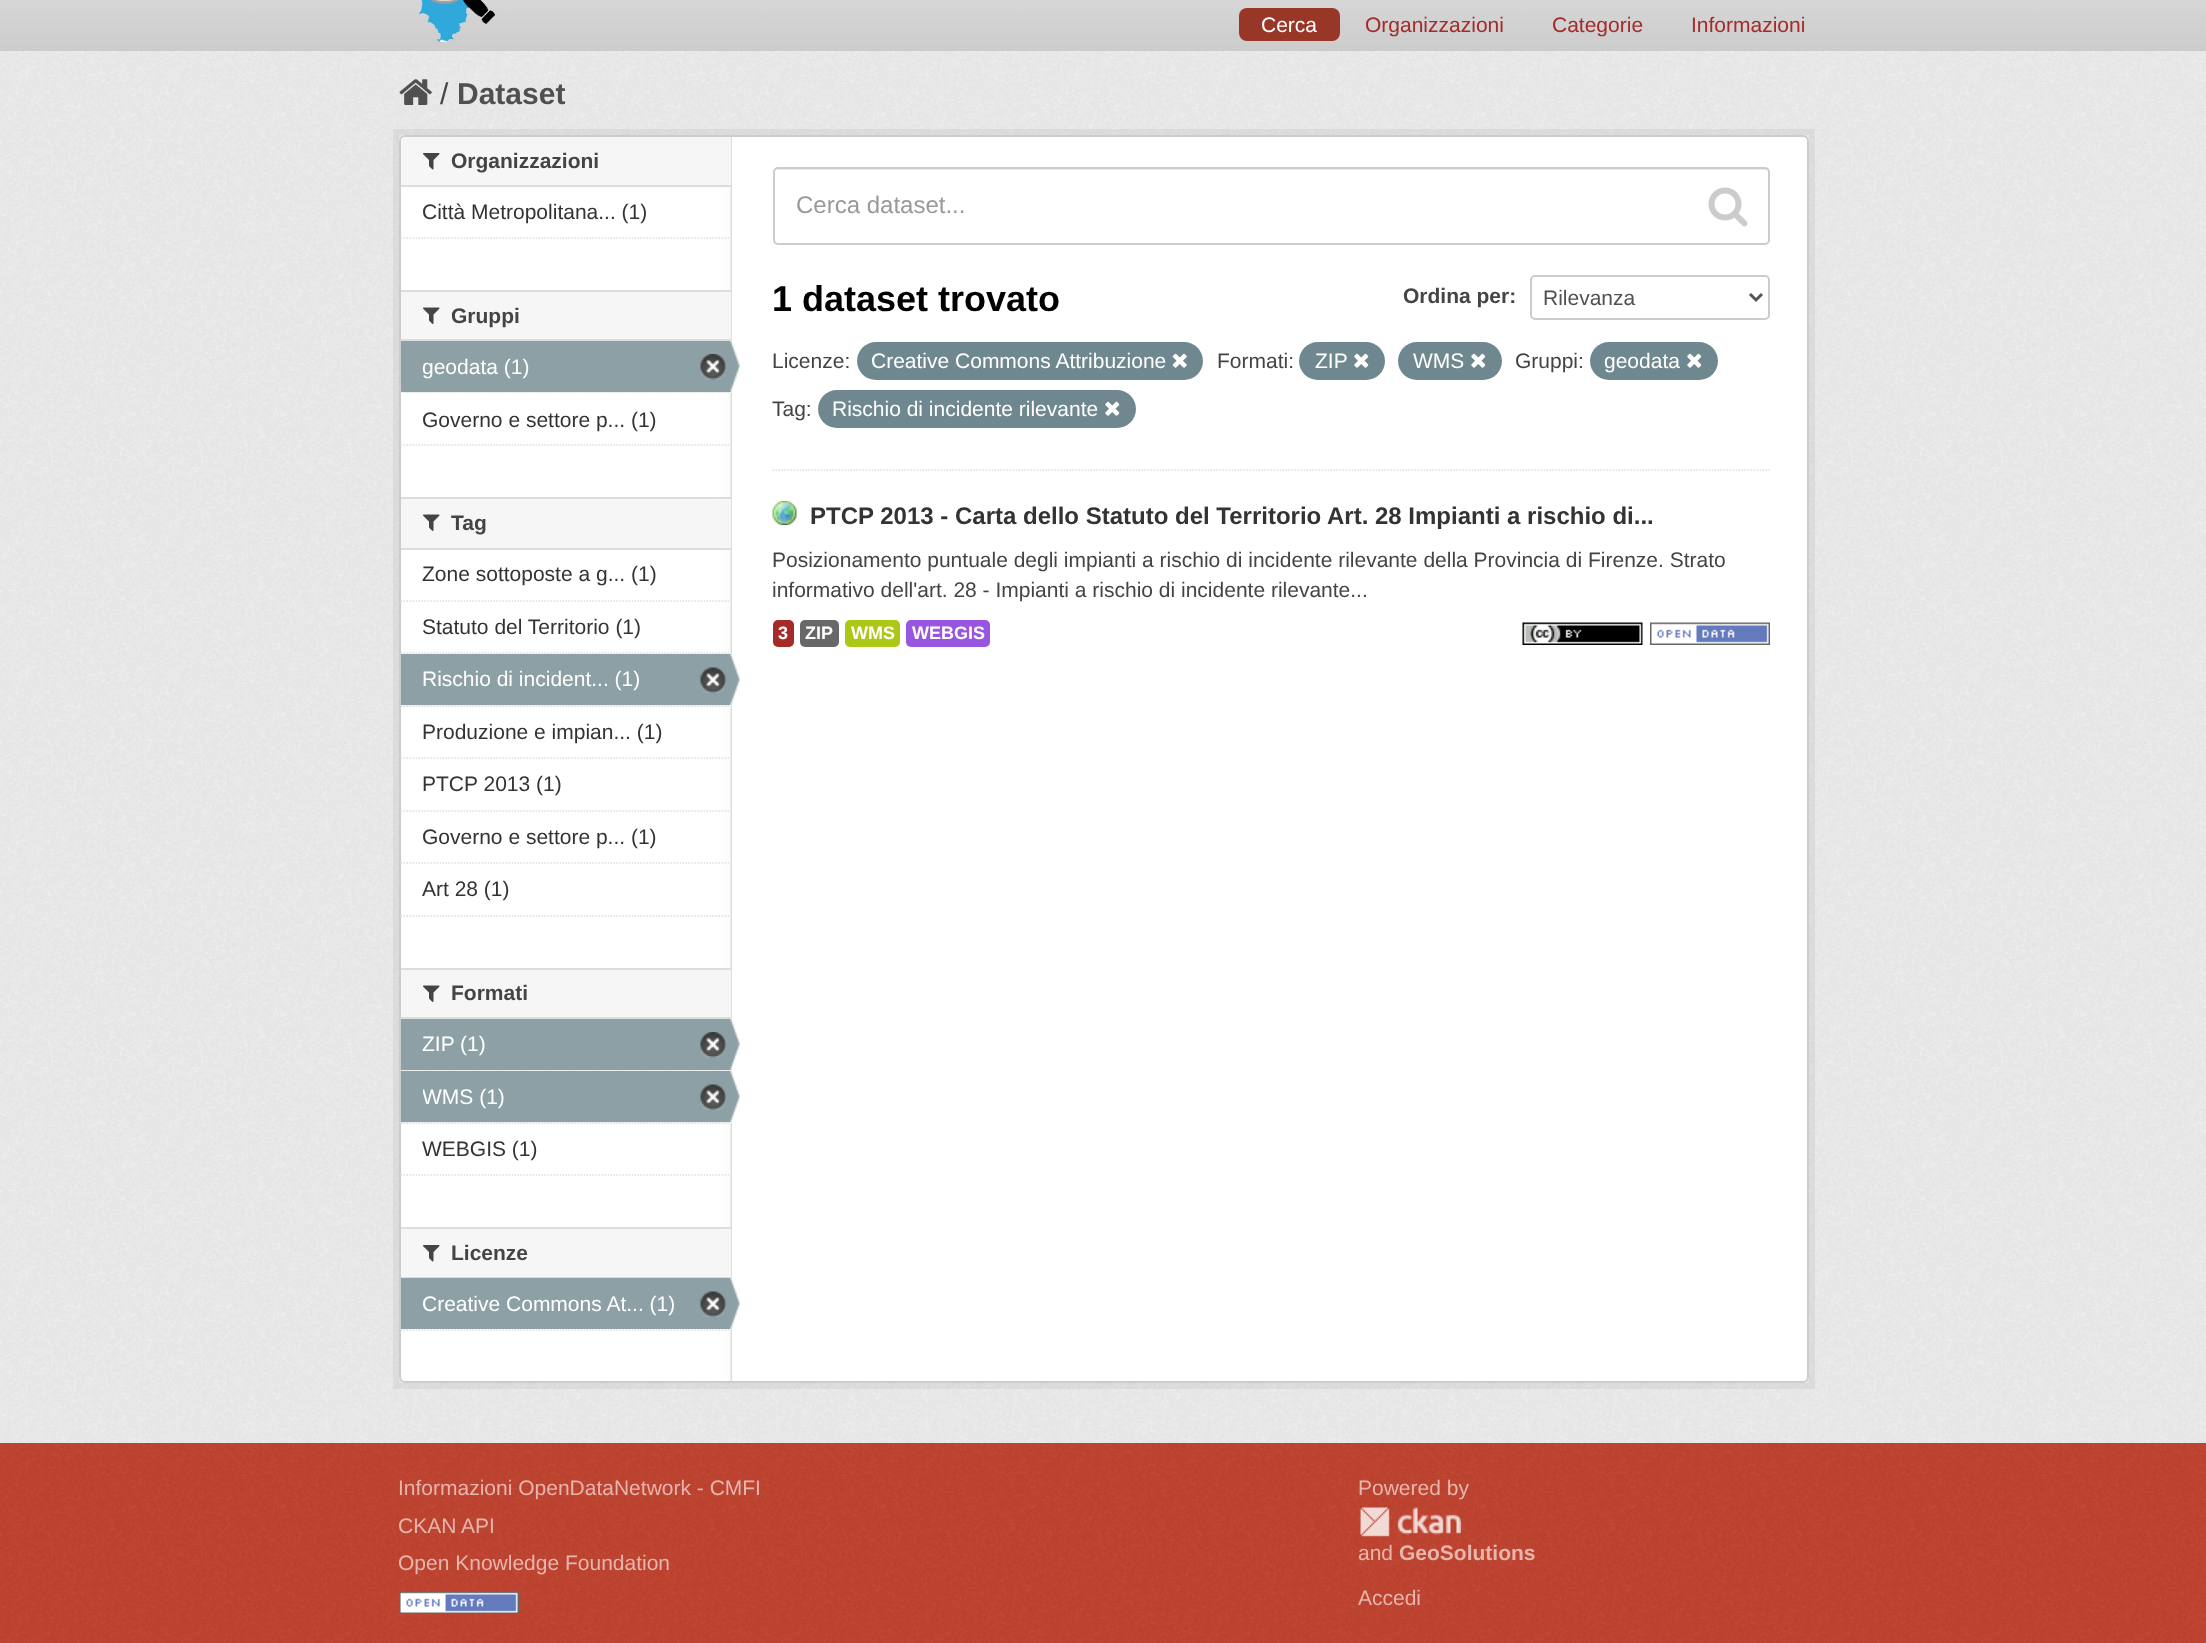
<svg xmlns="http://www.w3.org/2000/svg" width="2206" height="1643">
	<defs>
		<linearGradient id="g1" gradientUnits="userSpaceOnUse" x1="1103" y1="-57" x2="1103" y2="50"><stop offset="0" stop-color="#E2E2E2" /><stop offset="1" stop-color="#CCCCCC" /></linearGradient>
		<clipPath id="clip1"><rect x="423" y="1082" width="285" height="30" /></clipPath>
	</defs>
	<rect width="100%" height="100%" fill="#FFFFFF" />
	<rect x="0" y="0" width="2206" height="50" fill="url(#g1)" />
	<rect x="0" y="50" width="2206" height="1" fill="#CCCCCC" />
	<image x="419" y="0" width="76" height="42" href="assets/img1.png" />
	<rect x="1239" y="8" width="101" height="33" rx="8" fill="#983627" />
	<text x="1261" y="32" font-family="Liberation Sans" font-size="21" fill="#FFFFFF">Cerca</text>
	<g font-family="Liberation Sans" font-size="21" fill="#A52A2A">
		<text x="1365" y="32">Organizzazioni</text>
		<text x="1552" y="32">Categorie</text>
		<text x="1691" y="32">Informazioni</text>
	</g>
	<rect x="0" y="51" width="2206" height="1392" fill="#EEEEEE" />
	<image x="0" y="51" width="2206" height="1392" href="assets/img2.png" />
	<image x="399" y="79" width="33" height="26" href="assets/img3.png" />
	<text x="440" y="104" font-family="Liberation Sans" font-size="30" fill="#444444">/</text>
	<text x="457" y="104" font-family="Liberation Sans" font-size="30" font-weight="700" fill="#505050">Dataset</text>
	<rect x="396" y="132" width="1416" height="1254" fill="none" stroke="#000000" stroke-opacity="0.05" stroke-width="6" />
	<rect x="399" y="135" width="1410" height="1248" rx="6" fill="#FFFFFF" />
	<image x="401" y="135" width="331" height="1248" href="assets/img4.png" />
	<rect x="400" y="136" width="1408" height="1246" rx="5" fill="none" stroke="#CCCCCC" stroke-width="2" />
	<path d="M406 137H731V186H401V142C401 139 403 137 406 137Z" fill="#F6F6F6" />
	<rect x="401" y="185" width="330" height="2" fill="#DDDDDD" />
	<image x="423" y="153" width="17" height="17" href="assets/img5.png" />
	<text x="451" y="168" font-family="Liberation Sans" font-size="21" font-weight="700" fill="#444444">Organizzazioni</text>
	<text x="422" y="219" font-family="Liberation Sans" font-size="21" fill="#333333">Città Metropolitana... (1)</text>
	<path d="M400.5 238H730.5" fill="none" stroke="#DDDDDD" stroke-width="1.5" stroke-dasharray="1.5 1.5" />
	<rect x="401" y="292" width="330" height="47" fill="#F6F6F6" />
	<rect x="401" y="290" width="330" height="2" fill="#DDDDDD" />
	<rect x="401" y="339" width="330" height="2" fill="#DDDDDD" />
	<image x="423" y="307" width="17" height="17" href="assets/img6.png" />
	<text x="451" y="323" font-family="Liberation Sans" font-size="21" font-weight="700" fill="#444444">Gruppi</text>
	<rect x="401" y="392" width="330" height="1" fill="#F6F6F6" />
	<path d="M400.5 392H730.5" fill="none" stroke="#DDDDDD" stroke-width="1.5" stroke-dasharray="1.5 1.5" />
	<rect x="401" y="341" width="330" height="51" fill="#8CA0A6" />
	<text x="422" y="374" font-family="Liberation Sans" font-size="21" fill="#FFFFFF">geodata (1)</text>
	<image x="700" y="354" width="26" height="26" href="assets/img7.png" />
	<image x="730" y="340" width="10" height="52" href="assets/img8.png" />
	<text x="422" y="427" font-family="Liberation Sans" font-size="21" fill="#333333">Governo e settore p... (1)</text>
	<path d="M400.5 445H730.5" fill="none" stroke="#DDDDDD" stroke-width="1.5" stroke-dasharray="1.5 1.5" />
	<rect x="401" y="499" width="330" height="49" fill="#F6F6F6" />
	<rect x="401" y="497" width="330" height="2" fill="#DDDDDD" />
	<rect x="401" y="548" width="330" height="2" fill="#DDDDDD" />
	<image x="423" y="514" width="17" height="17" href="assets/img6.png" />
	<text x="451" y="530" font-family="Liberation Sans" font-size="21" font-weight="700" fill="#444444">Tag</text>
	<path d="M400.5 601H730.5" fill="none" stroke="#DDDDDD" stroke-width="1.5" stroke-dasharray="1.5 1.5" />
	<text x="422" y="581" font-family="Liberation Sans" font-size="21" fill="#333333">Zone sottoposte a g... (1)</text>
	<path d="M400.5 653H730.5" fill="none" stroke="#DDDDDD" stroke-width="1.5" stroke-dasharray="1.5 1.5" />
	<text x="422" y="634" font-family="Liberation Sans" font-size="21" fill="#333333">Statuto del Territorio (1)</text>
	<rect x="401" y="705" width="330" height="2" fill="#F6F6F6" />
	<path d="M400.5 706H730.5" fill="none" stroke="#DDDDDD" stroke-width="1.5" stroke-dasharray="1.5 1.5" />
	<rect x="401" y="654" width="330" height="51" fill="#8CA0A6" />
	<text x="422" y="686" font-family="Liberation Sans" font-size="21" fill="#FFFFFF">Rischio di incident... (1)</text>
	<image x="700" y="667" width="26" height="26" href="assets/img9.png" />
	<image x="730" y="654" width="10" height="51" href="assets/img10.png" />
	<path d="M400.5 758H730.5" fill="none" stroke="#DDDDDD" stroke-width="1.5" stroke-dasharray="1.5 1.5" />
	<text x="422" y="739" font-family="Liberation Sans" font-size="21" fill="#333333">Produzione e impian... (1)</text>
	<path d="M400.5 811H730.5" fill="none" stroke="#DDDDDD" stroke-width="1.5" stroke-dasharray="1.5 1.5" />
	<text x="422" y="791" font-family="Liberation Sans" font-size="21" fill="#333333">PTCP 2013 (1)</text>
	<path d="M400.5 863H730.5" fill="none" stroke="#DDDDDD" stroke-width="1.5" stroke-dasharray="1.5 1.5" />
	<g font-family="Liberation Sans" font-size="21" fill="#333333">
		<text x="422" y="844">Governo e settore p... (1)</text>
		<text x="422" y="896">Art 28 (1)</text>
	</g>
	<path d="M400.5 916H730.5" fill="none" stroke="#DDDDDD" stroke-width="1.5" stroke-dasharray="1.5 1.5" />
	<rect x="401" y="970" width="330" height="47" fill="#F6F6F6" />
	<rect x="401" y="968" width="330" height="2" fill="#DDDDDD" />
	<rect x="401" y="1017" width="330" height="2" fill="#DDDDDD" />
	<image x="423" y="985" width="17" height="17" href="assets/img6.png" />
	<text x="451" y="1000" font-family="Liberation Sans" font-size="21" font-weight="700" fill="#444444">Formati</text>
	<rect x="401" y="1070" width="330" height="1" fill="#F6F6F6" />
	<path d="M400.5 1070H730.5" fill="none" stroke="#DDDDDD" stroke-width="1.5" stroke-dasharray="1.5 1.5" />
	<rect x="401" y="1019" width="330" height="51" fill="#8CA0A6" />
	<text x="422" y="1051" font-family="Liberation Sans" font-size="21" fill="#FFFFFF">ZIP (1)</text>
	<image x="700" y="1032" width="26" height="26" href="assets/img7.png" />
	<image x="730" y="1018" width="10" height="52" href="assets/img8.png" />
	<rect x="401" y="1122" width="330" height="2" fill="#F6F6F6" />
	<path d="M400.5 1123H730.5" fill="none" stroke="#DDDDDD" stroke-width="1.5" stroke-dasharray="1.5 1.5" />
	<rect x="401" y="1071" width="330" height="51" fill="#8CA0A6" />
	<g clip-path="url(#clip1)">
		<text x="422" y="1104" font-family="Liberation Sans" font-size="21" fill="#FFFFFF">WMS (1)</text>
	</g>
	<image x="700" y="1084" width="26" height="26" href="assets/img9.png" />
	<image x="730" y="1071" width="10" height="51" href="assets/img10.png" />
	<text x="422" y="1156" font-family="Liberation Sans" font-size="21" fill="#333333">WEBGIS (1)</text>
	<path d="M400.5 1175H730.5" fill="none" stroke="#DDDDDD" stroke-width="1.5" stroke-dasharray="1.5 1.5" />
	<rect x="401" y="1229" width="330" height="48" fill="#F6F6F6" />
	<rect x="401" y="1227" width="330" height="2" fill="#DDDDDD" />
	<rect x="401" y="1277" width="330" height="1" fill="#DDDDDD" />
	<image x="423" y="1245" width="17" height="17" href="assets/img5.png" />
	<text x="451" y="1260" font-family="Liberation Sans" font-size="21" font-weight="700" fill="#444444">Licenze</text>
	<rect x="401" y="1278" width="330" height="51" fill="#8CA0A6" />
	<text x="422" y="1311" font-family="Liberation Sans" font-size="21" fill="#FFFFFF">Creative Commons At... (1)</text>
	<image x="700" y="1291" width="26" height="26" href="assets/img9.png" />
	<image x="730" y="1278" width="10" height="51" href="assets/img10.png" />
	<path d="M400.5 1330H730.5" fill="none" stroke="#DDDDDD" stroke-width="1.5" stroke-dasharray="1.5 1.5" />
	<path d="M772.5 470H1770" fill="none" stroke="#DDDDDD" stroke-width="1.5" stroke-dasharray="1.5 1.5" />
	<path d="M777 170H1766C1767 170 1768 171 1768 172V242C1769 242 1769 241 1769 240V171C1769 169 1768 168 1766 168H777C775 168 774 169 774 171V172C774 171 775 170 777 170Z" fill="#ECECEC" />
	<rect x="774" y="168" width="995" height="76" rx="4" fill="none" stroke="#CCCCCC" stroke-width="2" />
	<text x="796" y="213" font-family="Liberation Sans" font-size="24" fill="#999999">Cerca dataset...</text>
	<image x="1708" y="187" width="40" height="40" href="assets/img11.png" />
	<text x="772" y="311" font-family="Liberation Sans" font-size="36" font-weight="700" fill="#000000">1 dataset trovato</text>
	<text x="1403" y="303" font-family="Liberation Sans" font-size="21" font-weight="700" fill="#444444">Ordina per:</text>
	<rect x="1531" y="276" width="238" height="43" rx="4" fill="none" stroke="#CCCCCC" stroke-width="2" />
	<path d="M1750 294L1756 300L1762 294" fill="none" stroke="#555555" stroke-width="3" />
	<text x="1543" y="305" font-family="Liberation Sans" font-size="21" fill="#505050">Rilevanza</text>
	<text x="772" y="368" font-family="Liberation Sans" font-size="21" fill="#444444">Licenze:</text>
	<rect x="857" y="342" width="346" height="38" rx="19" fill="#6F8890" />
	<text x="871" y="368" font-family="Liberation Sans" font-size="21" fill="#FFFFFF">Creative Commons Attribuzione</text>
	<image x="1172" y="353" width="15" height="15" href="assets/img12.png" />
	<text x="1217" y="368" font-family="Liberation Sans" font-size="21" fill="#444444">Formati:</text>
	<rect x="1299" y="342" width="86" height="38" rx="19" fill="#6F8890" />
	<text x="1315" y="368" font-family="Liberation Sans" font-size="21" fill="#FFFFFF">ZIP</text>
	<image x="1354" y="353" width="15" height="15" href="assets/img13.png" />
	<rect x="1398" y="342" width="104" height="38" rx="19" fill="#6F8890" />
	<text x="1413" y="368" font-family="Liberation Sans" font-size="21" fill="#FFFFFF">WMS</text>
	<image x="1471" y="353" width="15" height="15" href="assets/img13.png" />
	<text x="1515" y="368" font-family="Liberation Sans" font-size="21" fill="#444444">Gruppi:</text>
	<rect x="1590" y="342" width="128" height="38" rx="19" fill="#6F8890" />
	<text x="1604" y="368" font-family="Liberation Sans" font-size="21" fill="#FFFFFF">geodata</text>
	<image x="1687" y="353" width="15" height="15" href="assets/img13.png" />
	<text x="772" y="416" font-family="Liberation Sans" font-size="21" fill="#444444">Tag:</text>
	<rect x="818" y="390" width="318" height="38" rx="19" fill="#6F8890" />
	<text x="832" y="416" font-family="Liberation Sans" font-size="21" fill="#FFFFFF">Rischio di incidente rilevante</text>
	<image x="1105" y="401" width="15" height="15" href="assets/img13.png" />
	<image x="772" y="501" width="25" height="24" href="assets/img14.png" />
	<text x="810" y="524" font-family="Liberation Sans" font-size="24" font-weight="700" fill="#333333">PTCP 2013 - Carta dello Statuto del Territorio Art. 28 Impianti a rischio di...</text>
	<g font-family="Liberation Sans" font-size="21" fill="#444444">
		<text x="772" y="567">Posizionamento puntuale degli impianti a rischio di incidente rilevante della Provincia di Firenze. Strato</text>
		<text x="772" y="597">informativo dell'art. 28 - Impianti a rischio di incidente rilevante...</text>
	</g>
	<rect x="773" y="620" width="21" height="27" rx="5" fill="#A52A2A" />
	<text x="778" y="639" font-family="Liberation Sans" font-size="18" font-weight="700" fill="#FFFFFF">3</text>
	<rect x="800" y="620" width="39" height="27" rx="5" fill="#686868" />
	<text x="805" y="639" font-family="Liberation Sans" font-size="18" font-weight="700" fill="#FFFFFF">ZIP</text>
	<rect x="845" y="620" width="55" height="27" rx="5" fill="#ADC717" />
	<text x="851" y="639" font-family="Liberation Sans" font-size="18" font-weight="700" fill="#FFFFFF">WMS</text>
	<rect x="906" y="620" width="84" height="27" rx="5" fill="#9855E0" />
	<text x="912" y="639" font-family="Liberation Sans" font-size="18" font-weight="700" fill="#FFFFFF">WEBGIS</text>
	<image x="1522" y="622" width="121" height="23" href="assets/img15.png" />
	<image x="1650" y="622" width="120" height="23" href="assets/img16.png" />
	<rect x="0" y="1443" width="2206" height="200" fill="#C14531" />
	<image x="0" y="1443" width="2206" height="200" href="assets/img17.png" />
	<g font-family="Liberation Sans" font-size="21" fill="#E6B5AD">
		<text x="398" y="1495">Informazioni OpenDataNetwork - CMFI</text>
		<text x="398" y="1533">CKAN API</text>
		<text x="398" y="1570">Open Knowledge Foundation</text>
	</g>
	<image x="399" y="1591" width="120" height="23" href="assets/img18.png" />
	<text x="1358" y="1495" font-family="Liberation Sans" font-size="21" fill="#E6B5AD">Powered by</text>
	<image x="1360" y="1507" width="101" height="30" href="assets/img19.png" />
	<text x="1358" y="1560" font-family="Liberation Sans" font-size="21" fill="#E6B5AD">and</text>
	<text x="1399" y="1560" font-family="Liberation Sans" font-size="21" font-weight="700" fill="#E6B5AD">GeoSolutions</text>
	<text x="1358" y="1605" font-family="Liberation Sans" font-size="21" fill="#E6B5AD">Accedi</text>
</svg>
